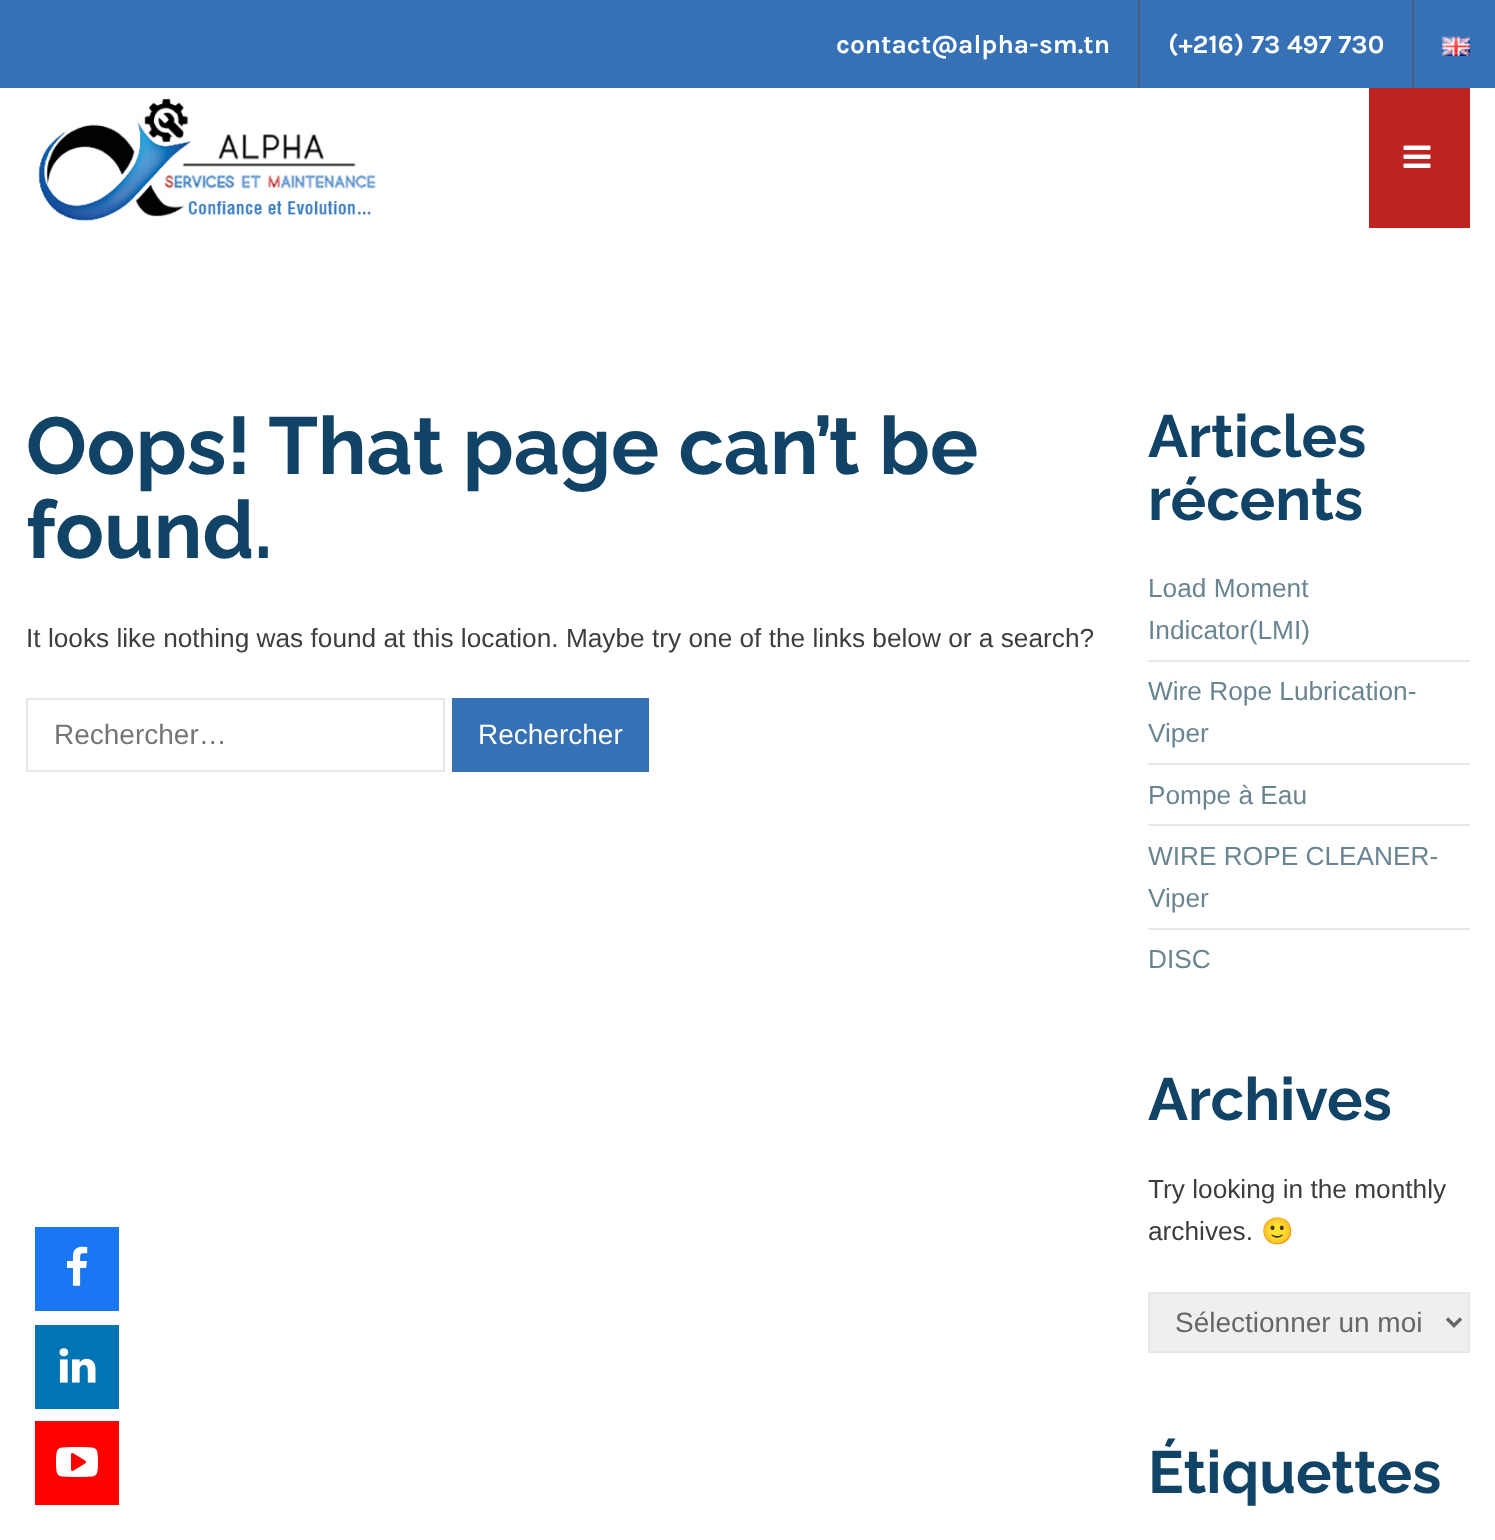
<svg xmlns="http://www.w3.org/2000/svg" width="1495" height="1540">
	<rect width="100%" height="100%" fill="#FFFFFF" />
	<rect x="0" y="0" width="1495" height="88" fill="#3671B6" />
	<text x="836" y="53" font-family="Karla" font-size="26.25" font-weight="700" fill="#FFFFFF">contact@alpha-sm.tn</text>
	<rect x="1138" y="0" width="2" height="88" fill="#455E77" />
	<text x="1168" y="53" font-family="Karla" font-size="26.25" font-weight="700" fill="#FFFFFF">(+216) 73 497 730</text>
	<rect x="1412" y="0" width="2" height="88" fill="#455E77" />
	<image x="1442" y="36" width="28" height="20" href="assets/img1.png" />
	<image x="38" y="98" width="339" height="124" href="assets/img2.png" />
	<rect x="1369" y="88" width="101" height="140" fill="#BD2421" />
	<image x="1403" y="145" width="28" height="23" href="assets/img3.png" />
	<g font-family="Raleway" font-size="80.5" font-weight="700" fill="#114366">
		<text x="26" y="474">Oops! That page can’t be</text>
		<text x="26" y="558">found.</text>
	</g>
	<text x="26" y="647" font-family="Liberation Sans" font-size="26.25" fill="#3D3D3D">It looks like nothing was found at this location. Maybe try one of the links below or a search?</text>
	<rect x="27" y="699" width="417" height="72" fill="none" stroke="#E5E7ED" stroke-width="2" />
	<text x="54" y="744" font-family="Liberation Sans" font-size="28" fill="#757575">Rechercher…</text>
	<rect x="452" y="698" width="197" height="74" fill="#3671B6" />
	<text x="478" y="744" font-family="Liberation Sans" font-size="28" fill="#FFFFFF">Rechercher</text>
	<g font-family="Raleway" font-size="59.5" font-weight="700" fill="#114366">
		<text x="1148" y="457">Articles</text>
		<text x="1148" y="520">récents</text>
	</g>
	<rect x="1148" y="660" width="322" height="2" fill="#E5E7ED" />
	<g font-family="Liberation Sans" font-size="26.25" fill="#698591">
		<text x="1148" y="597">Load Moment</text>
		<text x="1148" y="639">Indicator(LMI)</text>
	</g>
	<rect x="1148" y="763" width="322" height="2" fill="#E5E7ED" />
	<g font-family="Liberation Sans" font-size="26.25" fill="#698591">
		<text x="1148" y="700">Wire Rope Lubrication-</text>
		<text x="1148" y="742">Viper</text>
	</g>
	<rect x="1148" y="824" width="322" height="2" fill="#E5E7ED" />
	<text x="1148" y="804" font-family="Liberation Sans" font-size="26.25" fill="#698591">Pompe à Eau</text>
	<rect x="1148" y="928" width="322" height="2" fill="#E5E7ED" />
	<g font-family="Liberation Sans" font-size="26.25" fill="#698591">
		<text x="1148" y="865">WIRE ROPE CLEANER-</text>
		<text x="1148" y="907">Viper</text>
		<text x="1148" y="968">DISC</text>
	</g>
	<text x="1148" y="1120" font-family="Raleway" font-size="59.5" font-weight="700" fill="#114366">Archives</text>
	<g font-family="Liberation Sans" font-size="26.25" fill="#3D3D3D">
		<text x="1148" y="1198">Try looking in the monthly</text>
		<text x="1148" y="1240">archives.</text>
	</g>
	<text x="1261" y="1240" font-family="Noto Color Emoji" font-size="26.25" fill="#3D3D3D">🙂</text>
	<rect x="1149" y="1293" width="320" height="59" fill="#EFEFEF" stroke="#E5E7ED" stroke-width="2" />
	<path d="M1447 1318.5L1454 1325.5L1461 1318.5" fill="none" stroke="#666666" stroke-width="3.5" />
	<text x="1175" y="1332" font-family="Liberation Sans" font-size="28" fill="#666666">Sélectionner un moi</text>
	<text x="1148" y="1493" font-family="Raleway" font-size="59.5" font-weight="700" fill="#114366">Étiquettes</text>
	<rect x="35" y="1227" width="84" height="84" fill="#1977F3" />
	<image x="66" y="1246" width="22" height="40" href="assets/img4.png" />
	<rect x="35" y="1325" width="84" height="84" fill="#0274B3" />
	<image x="59" y="1348" width="37" height="35" href="assets/img5.png" />
	<rect x="35" y="1421" width="84" height="84" fill="#FF0000" />
	<image x="56" y="1447" width="42" height="30" href="assets/img6.png" />
</svg>
